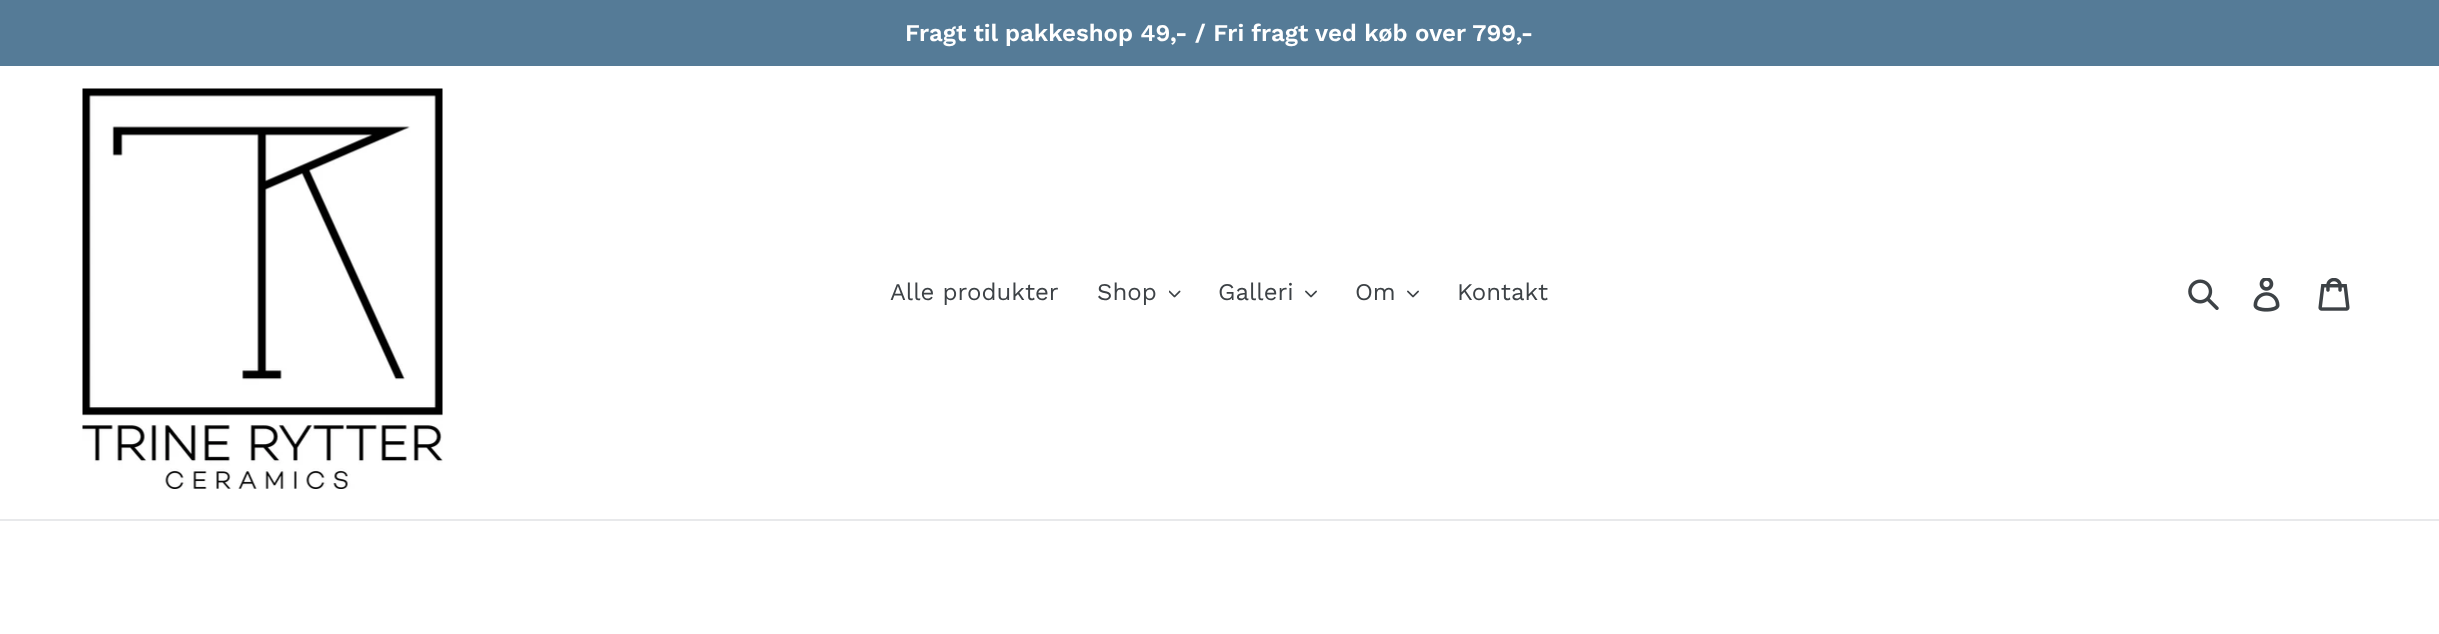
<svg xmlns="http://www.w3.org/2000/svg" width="2439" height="634">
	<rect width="100%" height="100%" fill="#FFFFFF" />
	<rect x="0" y="0" width="2439" height="66" fill="#557B97" />
	<text x="905" y="41" font-family="Work Sans" font-size="24" font-weight="600" fill="#FFFFFF">Fragt til pakkeshop 49,- / Fri fragt ved køb over 799,-</text>
	<rect x="0" y="519" width="2439" height="2" fill="#E8E9EB" />
	<image x="82" y="88" width="361" height="401" href="assets/img1.png" />
	<g font-family="Work Sans" font-size="24" fill="#3D4246">
		<text x="890" y="300">Alle produkter</text>
		<text x="1097" y="300">Shop</text>
	</g>
	<image x="1169" y="290" width="12" height="8" href="assets/img2.png" />
	<text x="1218" y="300" font-family="Work Sans" font-size="24" fill="#3D4246">Galleri</text>
	<image x="1305" y="290" width="12" height="8" href="assets/img3.png" />
	<text x="1355" y="300" font-family="Work Sans" font-size="24" fill="#3D4246">Om</text>
	<image x="1407" y="290" width="12" height="8" href="assets/img3.png" />
	<text x="1457" y="300" font-family="Work Sans" font-size="24" fill="#3D4246">Kontakt</text>
	<image x="2188" y="279" width="31" height="31" href="assets/img4.png" />
	<image x="2253" y="278" width="27" height="34" href="assets/img5.png" />
	<image x="2318" y="278" width="32" height="33" href="assets/img6.png" />
</svg>
